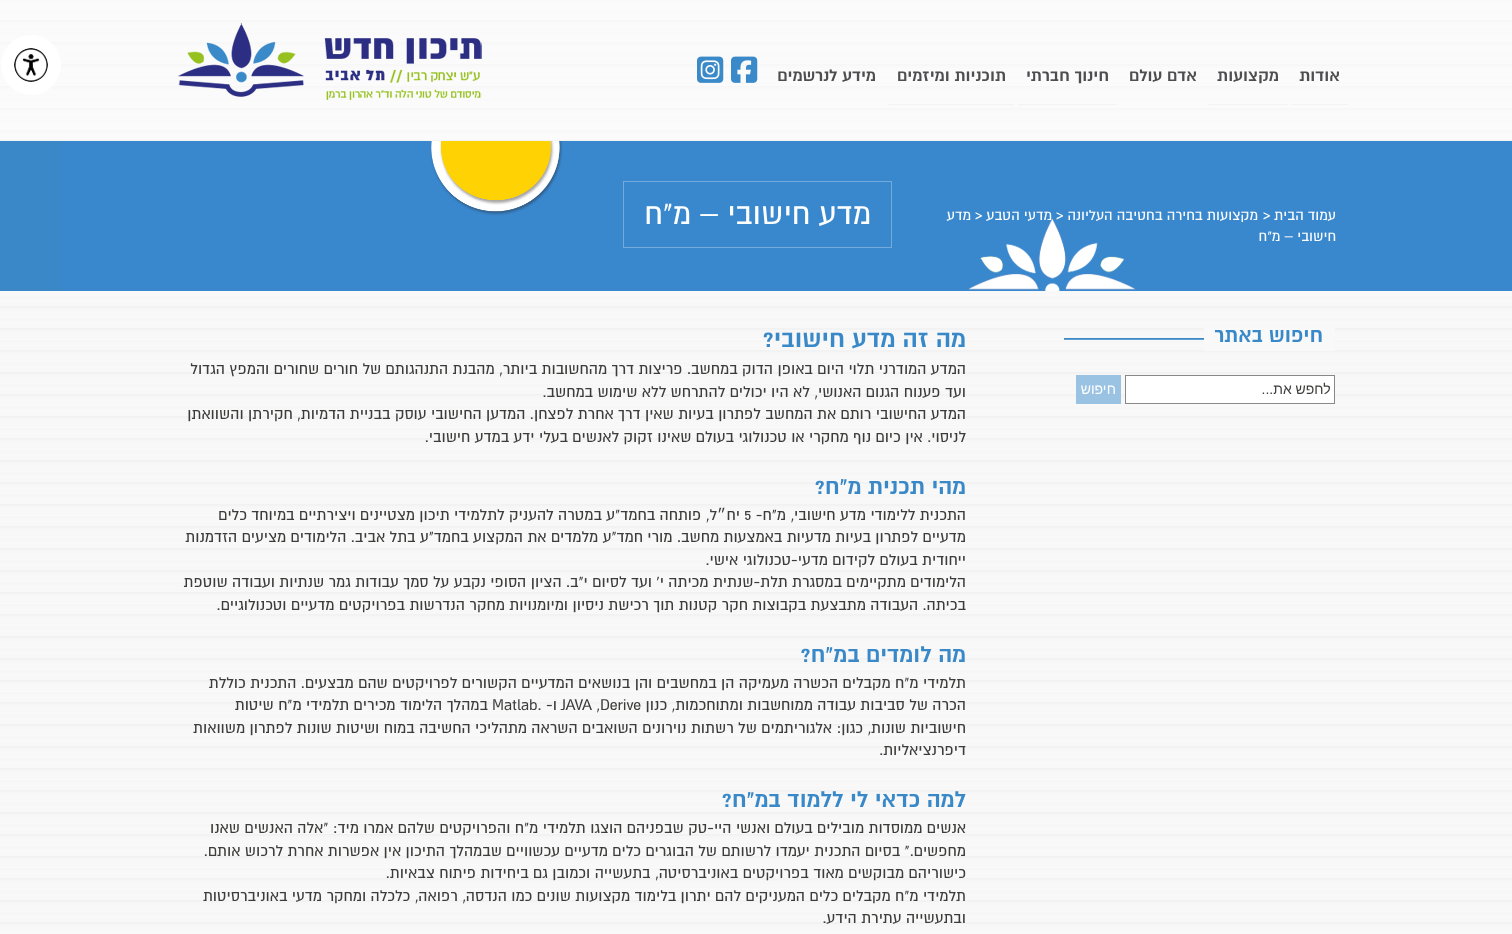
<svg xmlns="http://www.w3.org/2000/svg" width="1512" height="934">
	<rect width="100%" height="100%" fill="#FFFFFF" />
	<image x="0" y="0" width="1512" height="934" href="assets/img1.png" />
	<rect x="0" y="0" width="1512" height="140" fill="#FFFFFF" fill-opacity="0.4" />
	<rect x="0" y="140" width="1512" height="1" fill="#F3F3F3" />
	<rect x="1291" y="104" width="57" height="1" fill="#F3F3F3" />
	<text x="1340" y="81" font-family="'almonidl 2'" font-size="16" direction="rtl" fill="#4E4E50">אודות</text>
	<rect x="1209" y="104" width="78" height="1" fill="#F3F3F3" />
	<g font-family="'almonidl 2'" font-size="16" direction="rtl" fill="#4E4E50">
		<text x="1279" y="81">מקצועות</text>
		<text x="1197" y="81">אדם עולם</text>
	</g>
	<rect x="1018" y="104" width="99" height="1" fill="#F3F3F3" />
	<text x="1109" y="81" font-family="'almonidl 2'" font-size="16" direction="rtl" fill="#4E4E50">חינוך חברתי</text>
	<rect x="889" y="104" width="125" height="1" fill="#F3F3F3" />
	<g font-family="'almonidl 2'" font-size="16" direction="rtl" fill="#4E4E50">
		<text x="1006" y="81">תוכניות ומיזמים</text>
		<text x="876" y="81">מידע לנרשמים</text>
	</g>
	<image x="731" y="56" width="27" height="27" href="assets/img2.png" />
	<image x="697" y="56" width="27" height="27" href="assets/img3.png" />
	<image x="178" y="23" width="304" height="77" href="assets/img4.png" />
	<rect x="0" y="141" width="62" height="150" fill="#3B88C8" />
	<image x="62" y="141" width="1450" height="150" href="assets/img5.png" />
	<text x="1336" y="220" font-family="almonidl" font-size="14" direction="rtl" fill="#FFFFFF">עמוד הבית</text>
	<text x="1263" y="220" font-family="almonidl" font-size="14" fill="#FFFFFF">&gt;</text>
	<text x="1258" y="220" font-family="almonidl" font-size="14" direction="rtl" fill="#FFFFFF">מקצועות בחירה בחטיבה העליונה</text>
	<text x="1056" y="220" font-family="almonidl" font-size="14" fill="#FFFFFF">&gt;</text>
	<text x="1052" y="220" font-family="almonidl" font-size="14" direction="rtl" fill="#FFFFFF">מדעי הטבע</text>
	<text x="975" y="220" font-family="almonidl" font-size="14" fill="#FFFFFF">&gt;</text>
	<g font-family="almonidl" font-size="14" direction="rtl" fill="#FFFFFF">
		<text x="971" y="220">מדע</text>
		<text x="1336" y="241">חישובי – מ"ח</text>
	</g>
	<rect x="623.5" y="181.5" width="268" height="66" fill="none" stroke="#74ABDC" />
	<text x="871" y="224" font-family="almonidl" font-size="30" direction="rtl" fill="#FFFFFF">מדע חישובי – מ"ח</text>
	<image x="1064" y="338" width="140" height="2" href="assets/img6.png" />
	<rect x="1204" y="328" width="131" height="23" fill="#F9F9F9" />
	<text x="1323" y="342" font-family="'almonidl 2'" font-size="20" direction="rtl" fill="#3989C9">חיפוש באתר</text>
	<rect x="1125.5" y="375.5" width="209" height="28" fill="#FFFFFF" stroke="#888888" />
	<text x="1331" y="394" font-family="Arimo" font-size="14" direction="rtl" fill="#3C3C3B">לחפש את...</text>
	<rect x="1076" y="375" width="45" height="29" fill="#9AC3E3" />
	<text x="1116" y="394" font-family="Arimo" font-size="14" direction="rtl" fill="#FFFFFF">חיפוש</text>
	<text x="966" y="347" font-family="'almonidl 2'" font-size="24" direction="rtl" fill="#3989C9">מה זה מדע חישובי?</text>
	<g font-family="almonidl" font-size="15" direction="rtl" fill="#3C3C3B">
		<text x="966" y="374">המדע המודרני תלוי היום באופן הדוק במחשב. פריצות דרך מהחשובות ביותר, מהבנת התנהגותם של חורים שחורים והמפץ הגדול</text>
		<text x="966" y="397">ועד פענוח הגנום האנושי, לא היו יכולים להתרחש ללא שימוש במחשב.</text>
		<text x="966" y="419">המדע החישובי רותם את המחשב לפתרון בעיות שאין דרך אחרת לפצחן. המדען החישובי עוסק בבניית הדמיות, חקירתן והשוואתן</text>
		<text x="966" y="442">לניסוי. אין כיום נוף מחקרי או טכנולוגי בעולם שאינו זקוק לאנשים בעלי ידע במדע חישובי.</text>
	</g>
	<text x="966" y="494" font-family="'almonidl 2'" font-size="22" direction="rtl" fill="#3989C9">מהי תכנית מ"ח?</text>
	<text x="966" y="520" font-family="almonidl" font-size="15" direction="rtl" fill="#3C3C3B">התכנית ללימודי מדע חישובי, מ"ח-</text>
	<text x="744" y="520" font-family="almonidl" font-size="15" fill="#3C3C3B">5</text>
	<text x="740" y="520" font-family="almonidl" font-size="15" direction="rtl" fill="#3C3C3B">יח</text>
	<text x="726" y="520" font-family="Liberation Sans" font-size="15" direction="rtl" fill="#3C3C3B">״</text>
	<g font-family="almonidl" font-size="15" direction="rtl" fill="#3C3C3B">
		<text x="717" y="520">ל, פותחה בחמד"ע במטרה להעניק לתלמידי תיכון מצטיינים ויצירתיים במיוחד כלים</text>
		<text x="966" y="542">מדעיים לפתרון בעיות מדעיות באמצעות מחשב. מורי חמד"ע מלמדים את המקצוע בחמד"ע בתל אביב. הלימודים מציעים הזדמנות</text>
		<text x="966" y="565">ייחודית בעולם לקידום מדעי-טכנולוגי אישי.</text>
		<text x="966" y="587">הלימודים מתקיימים במסגרת תלת-שנתית מכיתה י' ועד לסיום י"ב. הציון הסופי נקבע על סמך עבודות גמר שנתיות ועבודה שוטפת</text>
		<text x="966" y="610">בכיתה. העבודה מתבצעת בקבוצות חקר קטנות תוך רכישת ניסיון ומיומנויות מחקר הנדרשות בפרויקטים מדעיים וטכנולוגיים.</text>
	</g>
	<text x="966" y="662" font-family="'almonidl 2'" font-size="22" direction="rtl" fill="#3989C9">מה לומדים במ"ח?</text>
	<g font-family="almonidl" font-size="15" direction="rtl" fill="#3C3C3B">
		<text x="966" y="688">תלמידי מ"ח מקבלים הכשרה מעמיקה הן במחשבים והן בנושאים המדעיים הקשורים לפרויקטים שהם מבצעים. התכנית כוללת</text>
		<text x="966" y="710">הכרה של סביבות עבודה ממוחשבות ומתוחכמות, כנון</text>
	</g>
	<text x="561" y="710" font-family="almonidl" font-size="15" fill="#3C3C3B">JAVA ,Derive</text>
	<text x="557" y="710" font-family="almonidl" font-size="15" direction="rtl" fill="#3C3C3B">ו- .</text>
	<text x="492" y="710" font-family="almonidl" font-size="15" fill="#3C3C3B">Matlab</text>
	<g font-family="almonidl" font-size="15" direction="rtl" fill="#3C3C3B">
		<text x="488" y="710">במהלך הלימוד מכירים תלמידי מ"ח שיטות</text>
		<text x="966" y="733">חישוביות שונות, כגון: אלגוריתמים של רשתות נוירונים השואבים השראה מתהליכי החשיבה במוח ושיטות שונות לפתרון משוואות</text>
		<text x="966" y="755">דיפרנציאליות.</text>
	</g>
	<text x="966" y="807" font-family="'almonidl 2'" font-size="22" direction="rtl" fill="#3989C9">למה כדאי לי ללמוד במ"ח?</text>
	<g font-family="almonidl" font-size="15" direction="rtl" fill="#3C3C3B">
		<text x="966" y="833">אנשים ממוסדות מובילים בעולם ואנשי היי-טק שבפניהם הוצגו תלמידי מ"ח והפרויקטים שלהם אמרו מיד: "אלה האנשים שאנו</text>
		<text x="966" y="856">מחפשים." בסיום התכנית יעמדו לרשותם של הבוגרים כלים מדעיים עכשוויים שבמהלך התיכון אין אפשרות אחרת לרכוש אותם.</text>
		<text x="966" y="878">כישוריהם מבוקשים מאוד בפרויקטים באוניברסיטה, בתעשייה וכמובן גם ביחידות פיתוח צבאיות.</text>
		<text x="966" y="901">תלמידי מ"ח מקבלים כלים המעניקים להם יתרון בלימוד מקצועות שונים כמו הנדסה, רפואה, כלכלה ומחקר מדעי באוניברסיטות</text>
		<text x="966" y="923">ובתעשייה עתירת הידע.</text>
	</g>
	<circle cx="31" cy="65" r="30" fill="#FFFFFF" />
	<image x="14" y="48" width="34" height="34" href="assets/img7.png" />
</svg>
